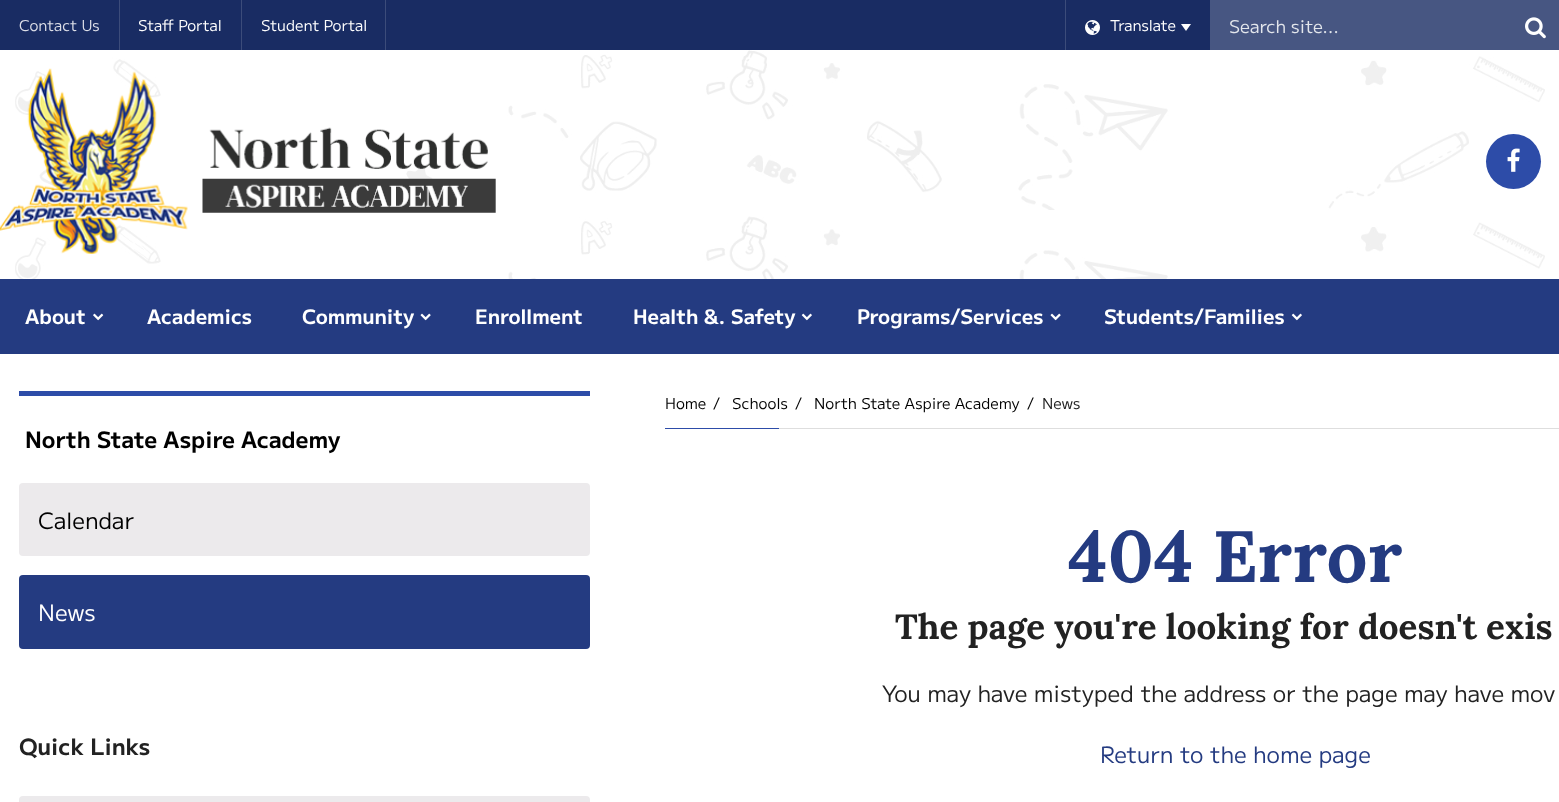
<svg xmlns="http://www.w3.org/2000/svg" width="1559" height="802">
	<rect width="100%" height="100%" fill="#FFFFFF" />
	<rect x="0" y="0" width="1210" height="50" fill="#192C63" />
	<rect x="119" y="0" width="1" height="50" fill="#3C4C7A" />
	<text x="19" y="31" font-family="'M PLUS 2'" font-size="15" fill="#DDDFE8">Contact Us</text>
	<rect x="241" y="0" width="1" height="50" fill="#3C4C7A" />
	<text x="138" y="31" font-family="'M PLUS 2'" font-size="15" fill="#FFFFFF">Staff Portal</text>
	<rect x="385" y="0" width="1" height="50" fill="#3C4C7A" />
	<text x="261" y="31" font-family="'M PLUS 2'" font-size="15" fill="#FFFFFF">Student Portal</text>
	<rect x="1065" y="0" width="1" height="50" fill="#3C4C7A" />
	<image x="1085" y="20" width="15" height="15" href="assets/img1.png" />
	<text x="1110" y="31" font-family="'M PLUS 2'" font-size="15" fill="#FFFFFF">Translate</text>
	<path d="M1181 24H1191L1186 31Z" fill="#FFFFFF" />
	<rect x="1210" y="0" width="349" height="50" fill="#475682" />
	<text x="1229" y="33" font-family="'M PLUS 2'" font-size="17.5" fill="#E3E6EC">Search site...</text>
	<image x="1525" y="17" width="21" height="22" href="assets/img2.png" />
	<image x="15" y="50" width="1530" height="229" href="assets/img3.png" />
	<image x="0" y="68" width="496" height="186" href="assets/img4.png" />
	<circle cx="1513.5" cy="161.5" r="27.5" fill="#2D4CA8" />
	<image x="1507" y="148" width="13" height="24" href="assets/img5.png" />
	<rect x="0" y="279" width="1559" height="75" fill="#243B81" />
	<text x="25" y="324" font-family="'M PLUS 2'" font-size="20" font-weight="700" fill="#FFFFFF">About</text>
	<image x="93" y="313" width="11" height="8" href="assets/img6.png" />
	<g font-family="'M PLUS 2'" font-size="20" font-weight="700" fill="#FFFFFF">
		<text x="147" y="324">Academics</text>
		<text x="302" y="324">Community</text>
	</g>
	<image x="420" y="313" width="11" height="8" href="assets/img7.png" />
	<g font-family="'M PLUS 2'" font-size="20" font-weight="700" fill="#FFFFFF">
		<text x="475" y="324">Enrollment</text>
		<text x="633" y="324">Health &amp;. Safety</text>
	</g>
	<image x="801" y="313" width="11" height="8" href="assets/img8.png" />
	<text x="857" y="324" font-family="'M PLUS 2'" font-size="20" font-weight="700" fill="#FFFFFF">Programs/Services</text>
	<image x="1050" y="313" width="11" height="8" href="assets/img7.png" />
	<text x="1104" y="324" font-family="'M PLUS 2'" font-size="20" font-weight="700" fill="#FFFFFF">Students/Families</text>
	<image x="1291" y="313" width="11" height="8" href="assets/img8.png" />
	<rect x="19" y="391" width="571" height="5" fill="#2D4CA8" />
	<text x="25" y="448" font-family="'M PLUS 2'" font-size="22.5" font-weight="700" fill="#000000">North State Aspire Academy</text>
	<rect x="19" y="483" width="571" height="73" rx="4" fill="#ECEAEC" />
	<text x="38" y="529" font-family="'M PLUS 2'" font-size="22.5" fill="#000000">Calendar</text>
	<rect x="19" y="575" width="571" height="74" rx="4" fill="#243B81" />
	<text x="38" y="621" font-family="'M PLUS 2'" font-size="22.5" fill="#FFFFFF">News</text>
	<text x="19" y="755" font-family="'M PLUS 2'" font-size="22.5" font-weight="700" fill="#222222">Quick Links</text>
	<rect x="19" y="796" width="571" height="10" rx="4" fill="#ECEAEC" />
	<rect x="779" y="428" width="780" height="1" fill="#DEDEDE" />
	<g font-family="'M PLUS 2'" font-size="15" fill="#000000">
		<text x="665" y="409">Home</text>
		<text x="713" y="409">/</text>
		<text x="732" y="409">Schools</text>
		<text x="795" y="409">/</text>
		<text x="814" y="409">North State Aspire Academy</text>
		<text x="1027" y="409">/</text>
	</g>
	<text x="1042" y="409" font-family="'M PLUS 2'" font-size="15" fill="#222222">News</text>
	<rect x="665" y="428" width="114" height="1" fill="#2D4CA8" />
	<text x="1068" y="582" font-family="Lora" font-size="72.5" font-weight="700" fill="#243B81">404 Error</text>
	<text x="895" y="639" font-family="Lora" font-size="35" font-weight="700" fill="#222222">The page you're looking for doesn't exis</text>
	<text x="882" y="702" font-family="'M PLUS 2'" font-size="22.5" fill="#222222">You may have mistyped the address or the page may have mov</text>
	<text x="1100" y="763" font-family="'M PLUS 2'" font-size="22.5" fill="#243B81">Return to the home page</text>
</svg>
